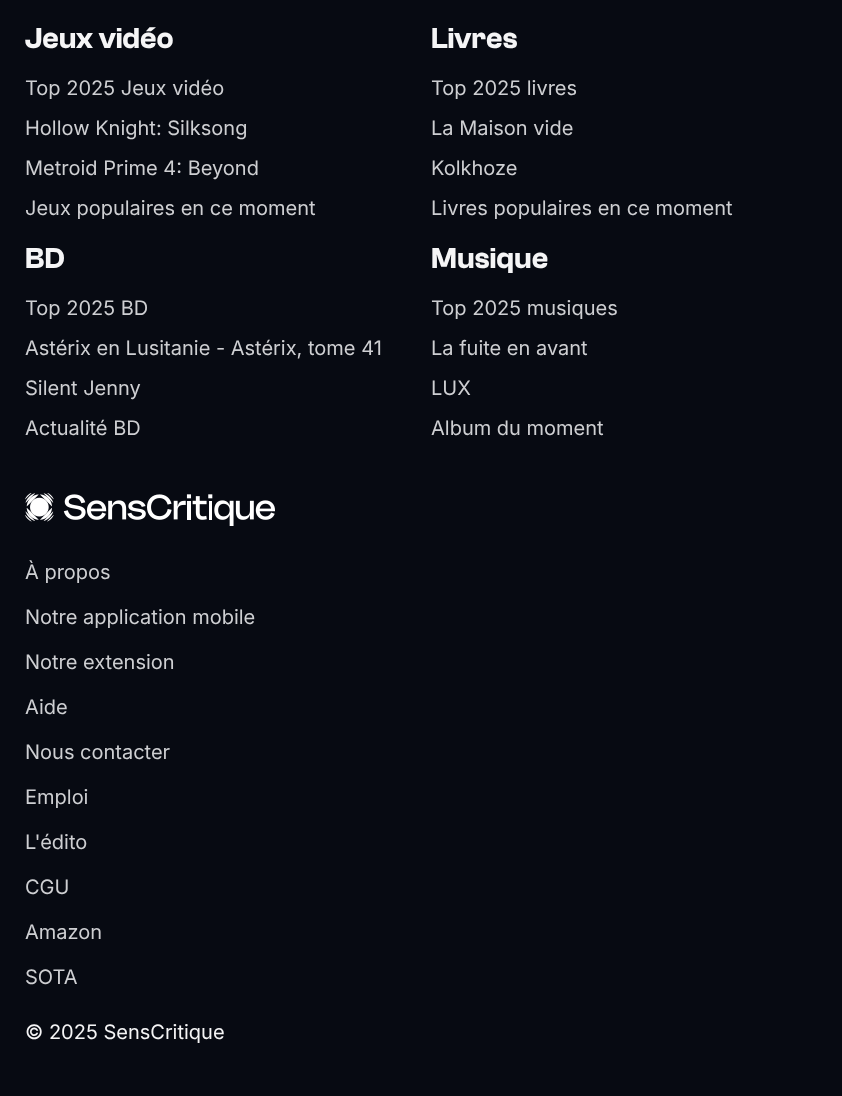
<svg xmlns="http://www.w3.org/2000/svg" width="842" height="1096">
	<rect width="100%" height="100%" fill="#070A12" />
	<text x="25" y="48" font-family="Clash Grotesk" font-size="30" font-weight="600" fill="#F5F5F6">Jeux vidéo</text>
	<g font-family="Inter" font-size="20" fill="#CECFD2">
		<text x="25" y="95">Top 2025 Jeux vidéo</text>
		<text x="25" y="135">Hollow Knight: Silksong</text>
		<text x="25" y="175">Metroid Prime 4: Beyond</text>
		<text x="25" y="215">Jeux populaires en ce moment</text>
	</g>
	<text x="431" y="48" font-family="Clash Grotesk" font-size="30" font-weight="600" fill="#F5F5F6">Livres</text>
	<g font-family="Inter" font-size="20" fill="#CECFD2">
		<text x="431" y="95">Top 2025 livres</text>
		<text x="431" y="135">La Maison vide</text>
		<text x="431" y="175">Kolkhoze</text>
		<text x="431" y="215">Livres populaires en ce moment</text>
	</g>
	<text x="25" y="268" font-family="Clash Grotesk" font-size="30" font-weight="600" fill="#F5F5F6">BD</text>
	<g font-family="Inter" font-size="20" fill="#CECFD2">
		<text x="25" y="315">Top 2025 BD</text>
		<text x="25" y="355">Astérix en Lusitanie - Astérix, tome 41</text>
		<text x="25" y="395">Silent Jenny</text>
		<text x="25" y="435">Actualité BD</text>
	</g>
	<text x="431" y="268" font-family="Clash Grotesk" font-size="30" font-weight="600" fill="#F5F5F6">Musique</text>
	<g font-family="Inter" font-size="20" fill="#CECFD2">
		<text x="431" y="315">Top 2025 musiques</text>
		<text x="431" y="355">La fuite en avant</text>
		<text x="431" y="395">LUX</text>
		<text x="431" y="435">Album du moment</text>
	</g>
	<image x="25" y="493" width="250" height="33" href="assets/img1.png" />
	<g font-family="Inter" font-size="20" fill="#CECFD2">
		<text x="25" y="579">À propos</text>
		<text x="25" y="624">Notre application mobile</text>
		<text x="25" y="669">Notre extension</text>
		<text x="25" y="714">Aide</text>
		<text x="25" y="759">Nous contacter</text>
		<text x="25" y="804">Emploi</text>
		<text x="25" y="849">L'édito</text>
		<text x="25" y="894">CGU</text>
		<text x="25" y="939">Amazon</text>
		<text x="25" y="984">SOTA</text>
	</g>
	<text x="25" y="1039" font-family="Inter" font-size="20" fill="#F5F5F6">© 2025 SensCritique</text>
</svg>
